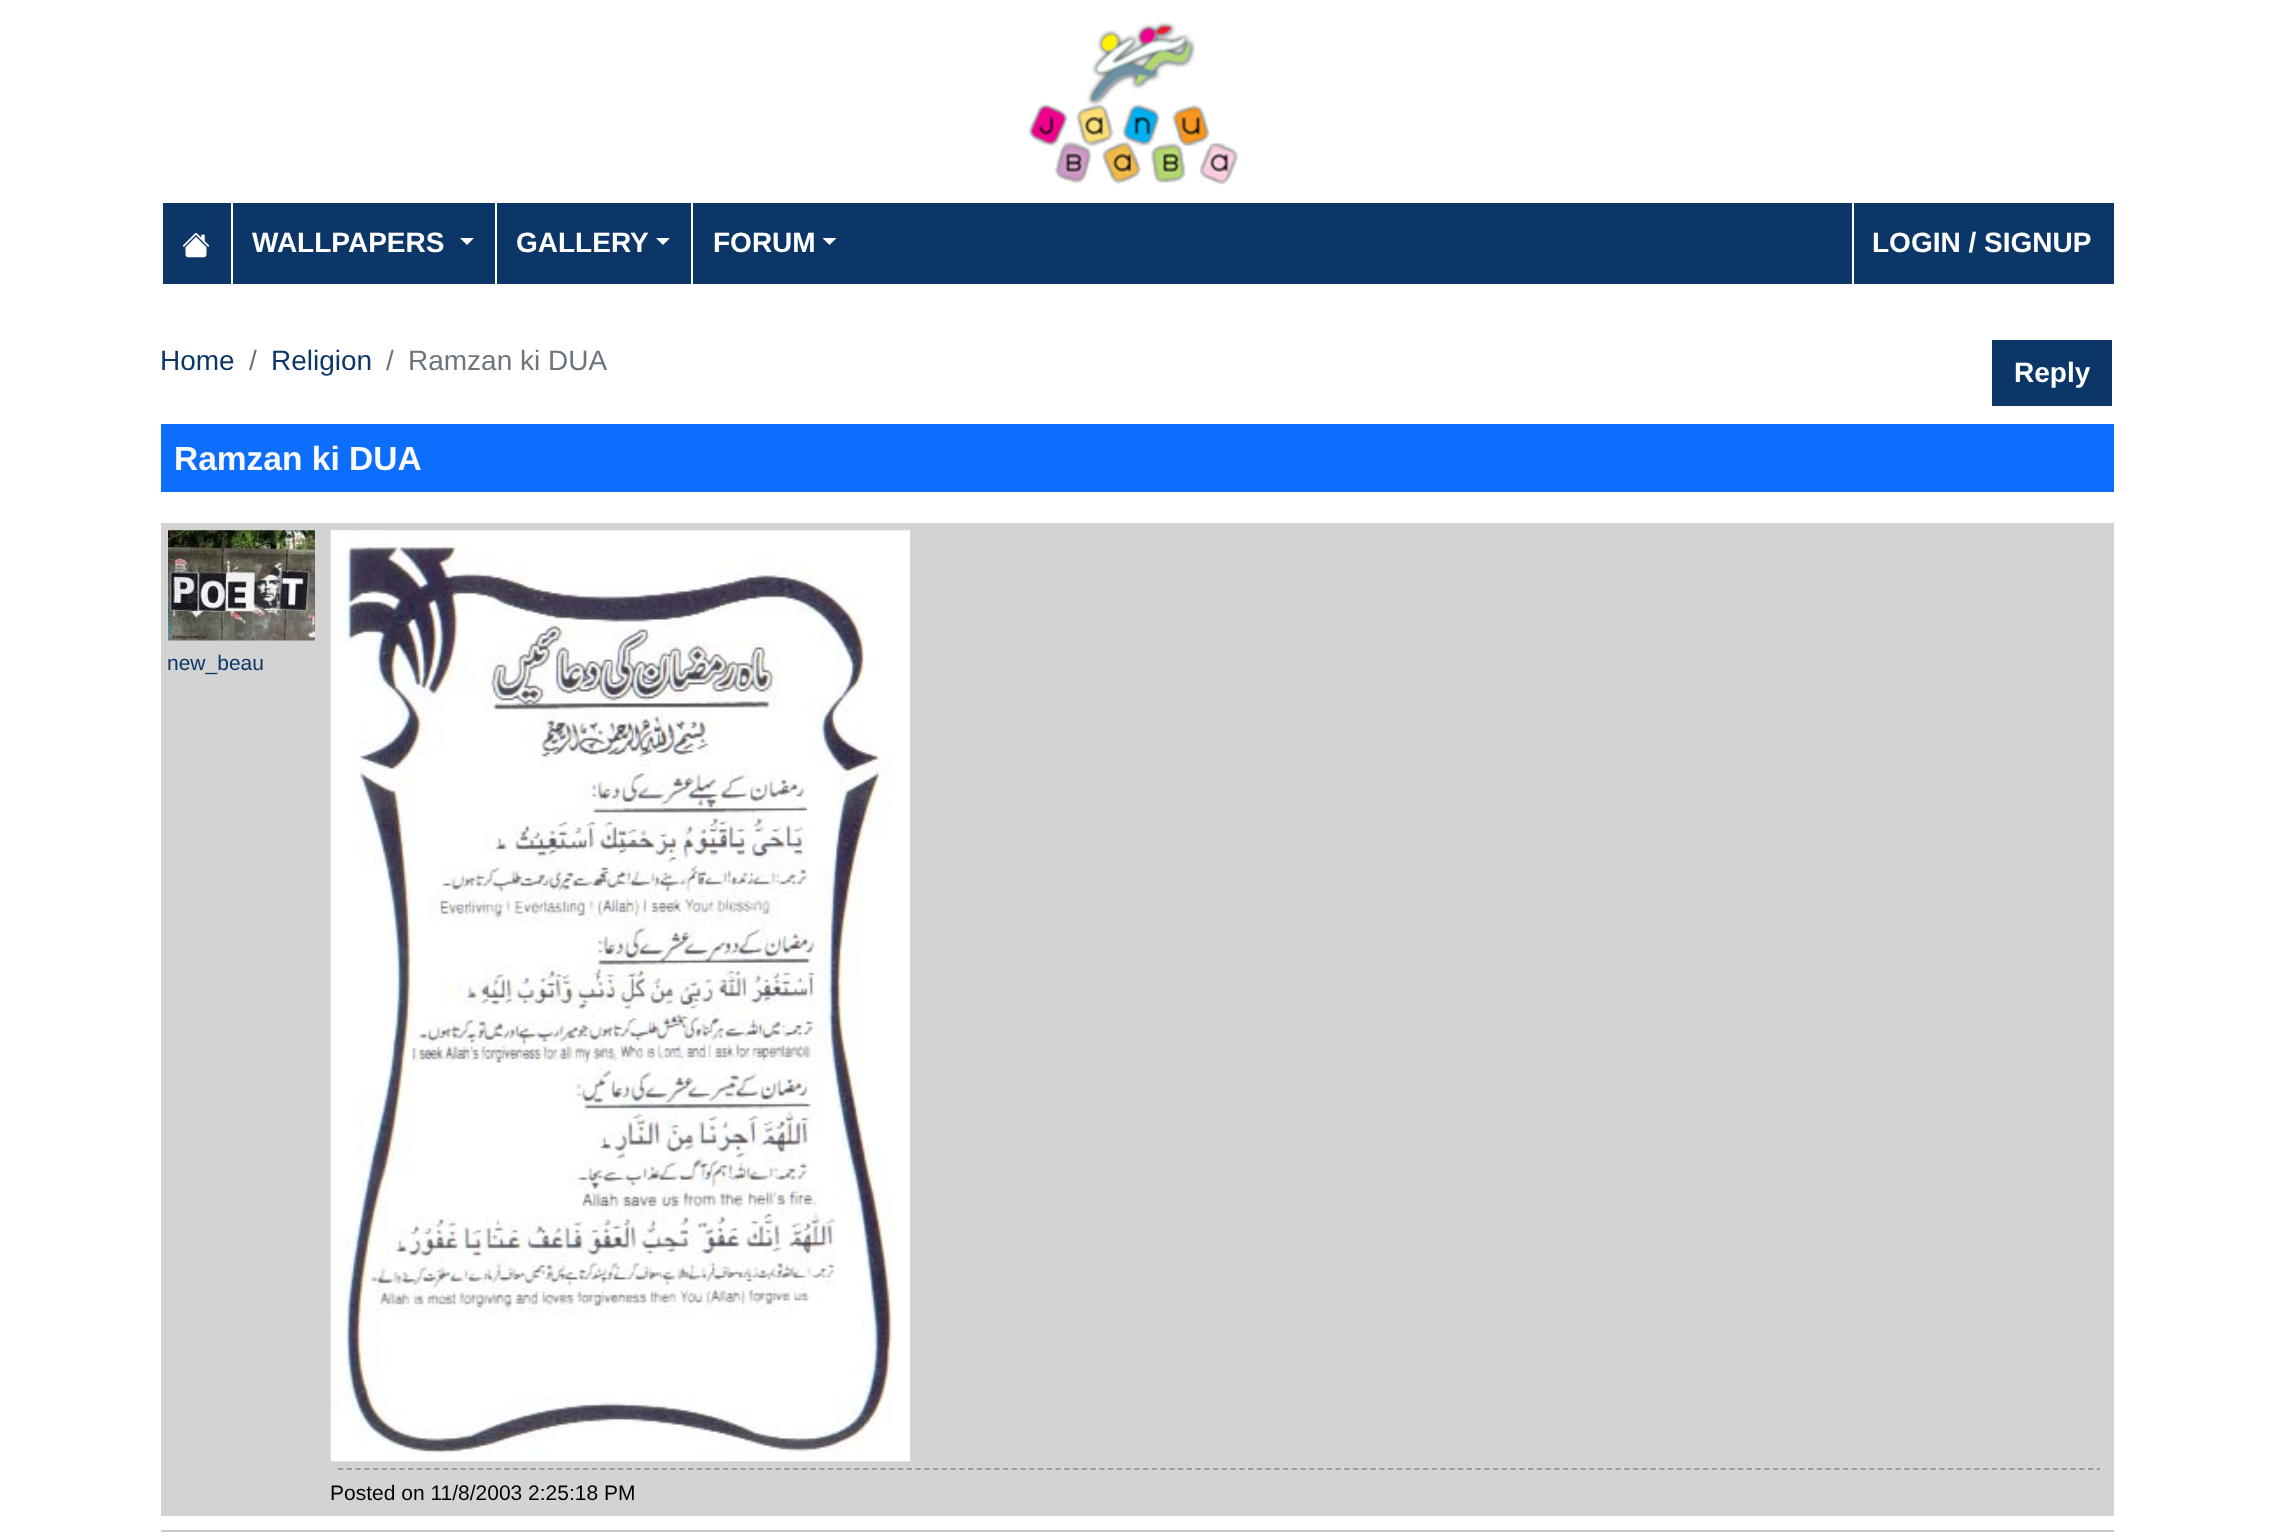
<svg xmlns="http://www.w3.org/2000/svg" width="2272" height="1538">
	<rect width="100%" height="100%" fill="#FFFFFF" />
	<image x="1028" y="22" width="210" height="163" href="assets/img1.png" />
	<rect x="163" y="203" width="1951" height="81" fill="#0B3667" />
	<image x="182" y="233" width="28" height="25" href="assets/img2.png" />
	<rect x="231" y="203" width="2" height="81" fill="#FFFFFF" />
	<text x="252" y="252" font-family="Liberation Sans" font-size="28" font-weight="700" fill="#FFFFFF">WALLPAPERS</text>
	<path d="M460 238H474L467 245Z" fill="#FFFFFF" />
	<rect x="495" y="203" width="2" height="81" fill="#FFFFFF" />
	<text x="516" y="252" font-family="Liberation Sans" font-size="28" font-weight="700" fill="#FFFFFF">GALLERY</text>
	<path d="M656 238H670L663 245Z" fill="#FFFFFF" />
	<rect x="691" y="203" width="2" height="81" fill="#FFFFFF" />
	<text x="713" y="252" font-family="Liberation Sans" font-size="28" font-weight="700" fill="#FFFFFF">FORUM</text>
	<path d="M822.5 238H836.5L829.5 245Z" fill="#FFFFFF" />
	<rect x="1852" y="203" width="2" height="81" fill="#FFFFFF" />
	<text x="1872" y="252" font-family="Liberation Sans" font-size="28" font-weight="700" fill="#FFFFFF">LOGIN / SIGNUP</text>
	<text x="160" y="370" font-family="Liberation Sans" font-size="28" fill="#0B3667">Home</text>
	<text x="249" y="370" font-family="Liberation Sans" font-size="28" fill="#6C757D">/</text>
	<text x="271" y="370" font-family="Liberation Sans" font-size="28" fill="#0B3667">Religion</text>
	<g font-family="Liberation Sans" font-size="28" fill="#6C757D">
		<text x="386" y="370">/</text>
		<text x="408" y="370">Ramzan ki DUA</text>
	</g>
	<rect x="1992" y="340" width="120" height="66" fill="#0B3667" />
	<text x="2014" y="382" font-family="Liberation Sans" font-size="28" font-weight="700" fill="#FFFFFF">Reply</text>
	<rect x="161" y="424" width="1953" height="68" fill="#0D6EFD" />
	<text x="174" y="470" font-family="Liberation Sans" font-size="33.5" font-weight="700" fill="#F8F9FA">Ramzan ki DUA</text>
	<rect x="161" y="523" width="1953" height="993" fill="#D3D3D3" />
	<image x="168" y="530" width="147" height="111" href="assets/img3.png" />
	<text x="167" y="670" font-family="Liberation Sans" font-size="21" fill="#0B3667">new_beau</text>
	<image x="330" y="530" width="580" height="932" href="assets/img4.png" />
	<path d="M338 1469H2100" fill="none" stroke="#9E9E9E" stroke-width="1.8" stroke-dasharray="5.25 3.5" />
	<text x="330" y="1500" font-family="Liberation Sans" font-size="21" fill="#000000">Posted on 11/8/2003 2:25:18 PM</text>
	<rect x="161" y="1530" width="1953" height="2" fill="#C8C9CA" />
</svg>
